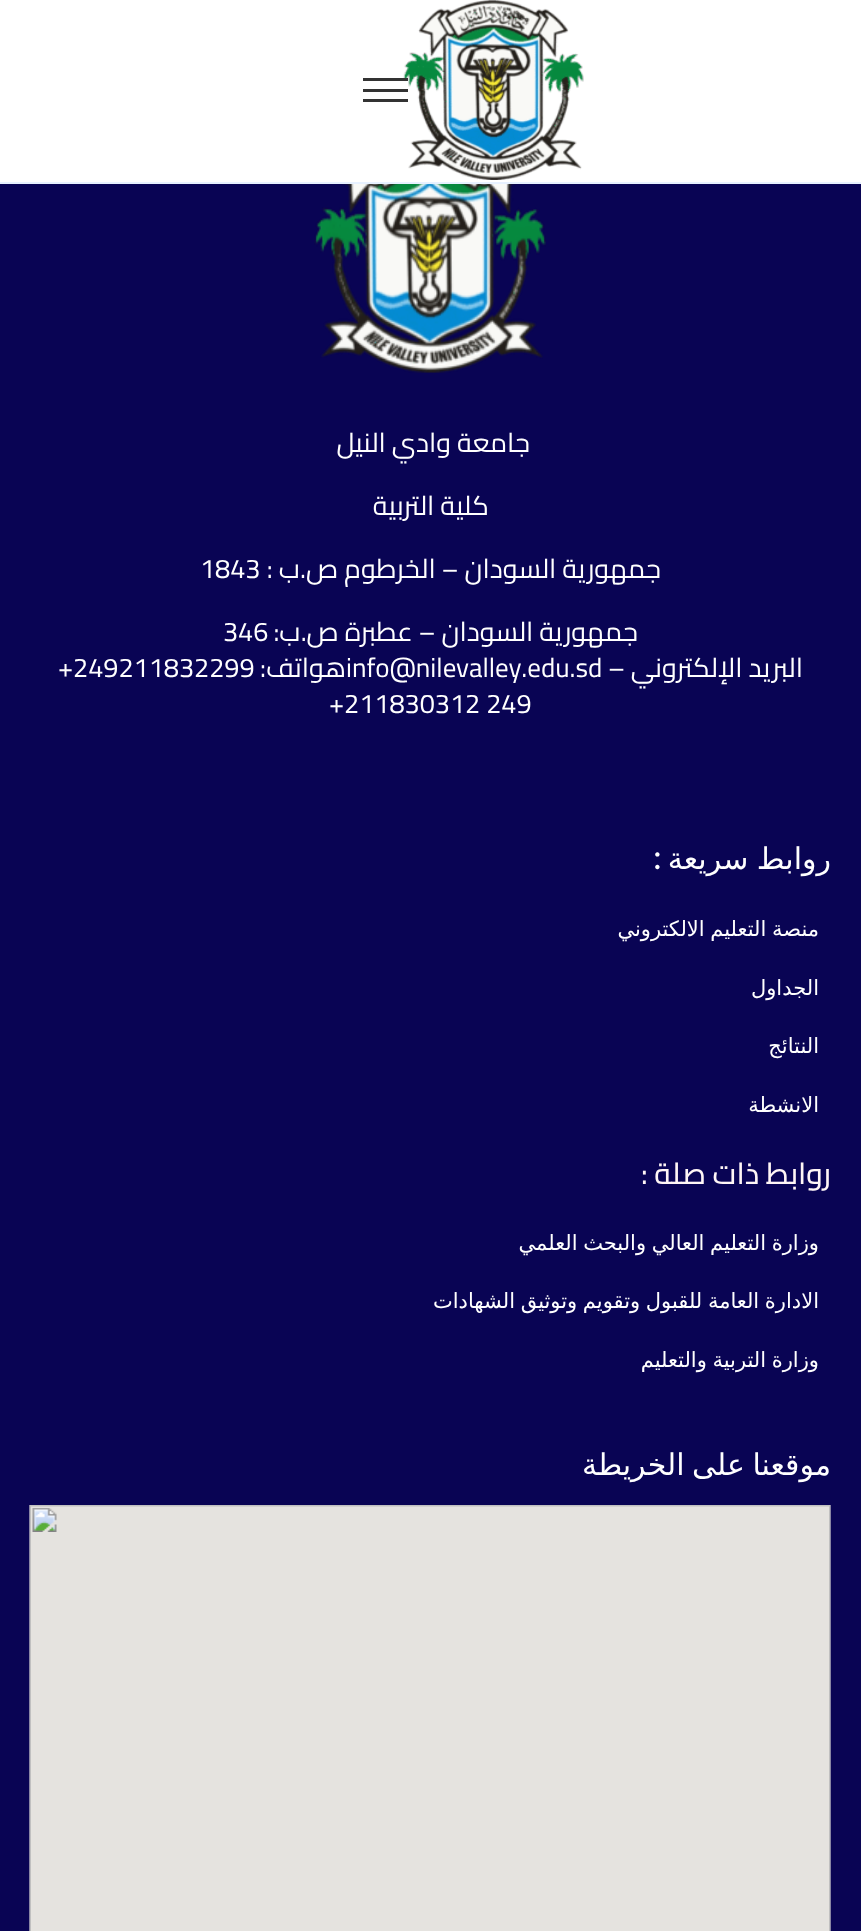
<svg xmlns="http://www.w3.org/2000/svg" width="861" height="1931">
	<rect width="100%" height="100%" fill="#090454" />
	<rect x="0" y="0" width="861" height="182" fill="#FFFFFF" />
	<rect x="0" y="182" width="861" height="2" fill="#E7F1FF" />
	<image x="403" y="0" width="181" height="180" href="assets/img1.png" />
	<rect x="363" y="78" width="45" height="3" fill="#333333" />
	<rect x="363" y="89" width="45" height="3" fill="#333333" />
	<rect x="363" y="99" width="45" height="3" fill="#333333" />
	<image x="314" y="184" width="232" height="189" href="assets/img2.png" />
	<g font-family="Cairo" font-size="27" direction="rtl" fill="#FFFFFF">
		<text x="530" y="452">جامعة وادي النيل</text>
		<text x="489" y="515">كلية التربية</text>
		<text x="661" y="578">جمهورية السودان – الخرطوم ص.ب :</text>
	</g>
	<text x="200" y="578" font-family="Cairo" font-size="27" fill="#FFFFFF">1843</text>
	<text x="638" y="641" font-family="Cairo" font-size="27" direction="rtl" fill="#FFFFFF">جمهورية السودان – عطبرة ص.ب:</text>
	<text x="223" y="641" font-family="Cairo" font-size="27" fill="#FFFFFF">346</text>
	<text x="803" y="677" font-family="Cairo" font-size="27" direction="rtl" fill="#FFFFFF">البريد الإلكتروني –</text>
	<text x="346" y="677" font-family="Cairo" font-size="27" fill="#FFFFFF">info@nilevalley.edu.sd</text>
	<text x="346" y="677" font-family="Cairo" font-size="27" direction="rtl" fill="#FFFFFF">هواتف:</text>
	<g font-family="Cairo" font-size="27" fill="#FFFFFF">
		<text x="58" y="677">+249211832299</text>
		<text x="329" y="713">+211830312 249</text>
	</g>
	<text x="831" y="869" word-spacing="-1" font-family="DejaVu Sans" font-size="30" direction="rtl" fill="#FFFFFF">روابط سريعة</text>
	<text x="661" y="869" font-family="Poppins" font-size="30" font-weight="500" direction="rtl" fill="#FFFFFF">:</text>
	<g font-family="DejaVu Sans" font-size="21" direction="rtl" fill="#FFFFFF">
		<text x="819" y="936" word-spacing="-1">منصة التعليم الالكتروني</text>
		<text x="819" y="995">الجداول</text>
		<text x="819" y="1053">النتائج</text>
		<text x="819" y="1112">الانشطة</text>
	</g>
	<text x="831" y="1184" font-family="Cairo" font-size="30" font-weight="500" direction="rtl" fill="#FFF6F6">روابط ذات صلة :</text>
	<g font-family="DejaVu Sans" font-size="21" direction="rtl" fill="#FFFFFF">
		<text x="819" y="1250" word-spacing="-1">وزارة التعليم العالي والبحث العلمي</text>
		<text x="819" y="1308" word-spacing="-1">الادارة العامة للقبول وتقويم وتوثيق الشهادات</text>
		<text x="819" y="1367" word-spacing="-1">وزارة التربية والتعليم</text>
	</g>
	<text x="831" y="1475" word-spacing="-2" font-family="DejaVu Sans" font-size="30" direction="rtl" fill="#FFFFFF">موقعنا على الخريطة</text>
	<image x="29" y="1505" width="802" height="426" href="assets/img3.png" />
</svg>
